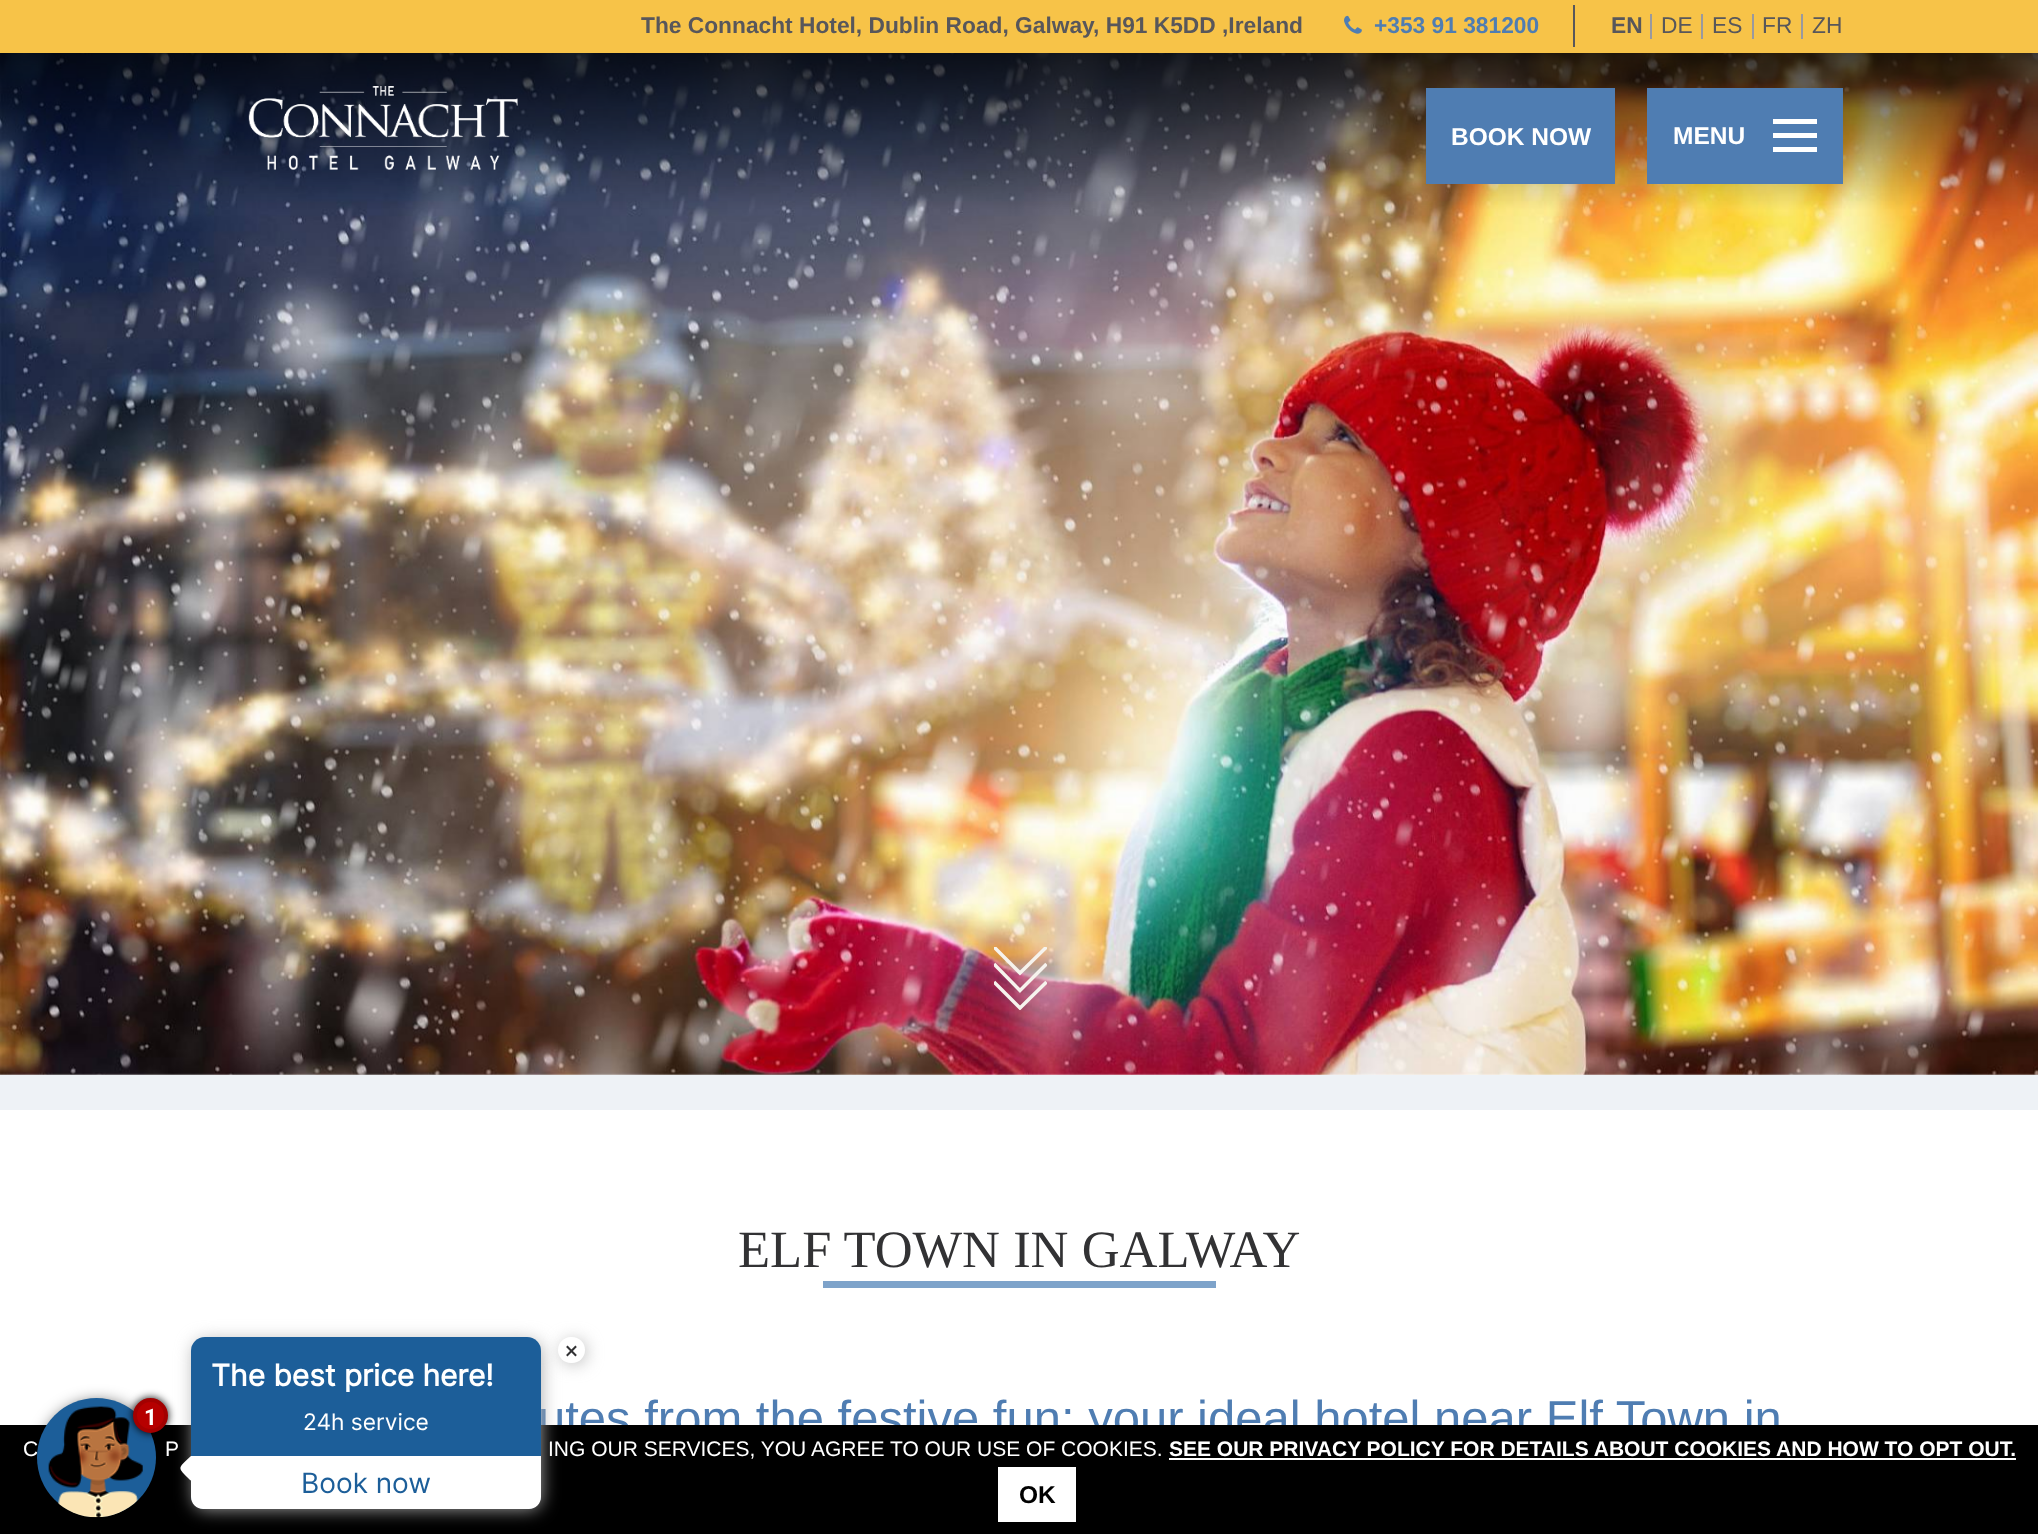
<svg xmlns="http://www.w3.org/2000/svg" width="2038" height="1534">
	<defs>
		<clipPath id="clip1"><rect x="994" y="947" width="53" height="63" /></clipPath>
	</defs>
	<rect width="100%" height="100%" fill="#FFFFFF" />
	<text x="538" y="1435" font-family="Liberation Sans" font-size="49" fill="#4F7DB2">utes from the festive fun: your ideal hotel near Elf Town in</text>
	<rect x="0" y="1425" width="2038" height="109" fill="#000000" />
	<rect x="44" y="1405" width="108" height="109" rx="54" fill="#000000" filter="blur(9px)" />
	<text x="23" y="1456" font-family="Liberation Sans" font-size="21" fill="#FFFFFF">C</text>
	<circle cx="96.5" cy="1457.5" r="59.5" fill="#1C5E99" />
	<image x="48" y="1406" width="95" height="112" href="assets/img1.png" />
	<rect x="133" y="1398" width="35" height="35" rx="17.5" fill="#000000" filter="blur(4.5px)" />
	<rect x="194" y="1341" width="347" height="168" rx="12" fill="#AAAAAA" filter="blur(9px)" />
	<circle cx="150.5" cy="1415.5" r="15.5" fill="#B60000" stroke="#A30000" stroke-width="4" />
	<text x="144" y="1425" font-family="Roboto" font-size="22.75" font-weight="700" fill="#FFFFFF">1</text>
	<rect x="191" y="1337" width="350" height="172" rx="14" fill="#1C5E99" />
	<rect x="562" y="1341" width="23" height="22" rx="11" fill="#AAAAAA" filter="blur(9px)" />
	<rect x="558" y="1337" width="27" height="26" rx="13" fill="#FFFFFF" />
	<text x="565" y="1359" font-family="Roboto" font-size="24.5" fill="#323234">×</text>
	<text x="211" y="1386" font-family="Inter" font-size="29.75" font-weight="700" fill="#FFFFFF">The best price here!</text>
	<text x="303" y="1430" font-family="Inter" font-size="22.75" fill="#FFFFFF">24h service</text>
	<path d="M191 1456H541V1497C541 1503.5 535.5 1509 529 1509H203C196.5 1509 191 1503.5 191 1497Z" fill="#FFFFFF" />
	<path d="M190.5 1480.5C177 1466.5 177 1469.5 191 1456L203 1468.5Z" fill="#FFFFFF" />
	<text x="301" y="1493" font-family="Inter" font-size="28" fill="#1C5E99">Book now</text>
	<rect x="0" y="0" width="2038" height="53" fill="#F7C348" />
	<text x="641" y="33" font-family="Liberation Sans" font-size="22.75" font-weight="700" fill="#58575B">The Connacht Hotel, Dublin Road, Galway, H91 K5DD ,Ireland</text>
	<image x="1344" y="15" width="18" height="19" href="assets/img2.png" />
	<text x="1374" y="33" font-family="Liberation Sans" font-size="22.75" font-weight="700" fill="#4F7DB2">+353 91 381200</text>
	<rect x="1573" y="5" width="2" height="42" fill="#58575B" />
	<text x="1611" y="33" font-family="Liberation Sans" font-size="22.75" font-weight="700" fill="#58575B">EN</text>
	<rect x="1650" y="14" width="2" height="25" fill="#9A999E" />
	<text x="1661" y="33" font-family="Liberation Sans" font-size="22.75" fill="#58575B">DE</text>
	<rect x="1701" y="14" width="2" height="25" fill="#9A999E" />
	<text x="1712" y="33" font-family="Liberation Sans" font-size="22.75" fill="#58575B">ES</text>
	<rect x="1752" y="14" width="2" height="25" fill="#9A999E" />
	<text x="1762" y="33" font-family="Liberation Sans" font-size="22.75" fill="#58575B">FR</text>
	<rect x="1801" y="14" width="2" height="25" fill="#9A999E" />
	<text x="1812" y="33" font-family="Liberation Sans" font-size="22.75" fill="#58575B">ZH</text>
	<image x="0" y="53" width="2038" height="1022" href="assets/img4.png" />
	<image x="248" y="86" width="270" height="84" href="assets/img3.png" />
	<rect x="1426" y="88" width="189" height="96" fill="#4F7DB2" />
	<text x="1451" y="145" font-family="Liberation Sans" font-size="24.5" font-weight="700" fill="#FFFFFF">BOOK NOW</text>
	<rect x="1647" y="88" width="196" height="96" fill="#4F7DB2" />
	<rect x="1773" y="119" width="44" height="5" fill="#FFFFFF" />
	<text x="1673" y="144" font-family="Liberation Sans" font-size="24.5" font-weight="700" fill="#FFFFFF">MENU</text>
	<rect x="1773" y="133" width="44" height="5" fill="#FFFFFF" />
	<rect x="1773" y="147" width="44" height="5" fill="#FFFFFF" />
	<g clip-path="url(#clip1)">
		<path d="M994 947L1020 973L1046.5 947M994 964L1020 990.5L1046.5 964M994 982L1020 1008L1046.5 982" fill="none" stroke="#F6F3ED" stroke-width="3.5" />
	</g>
	<rect x="0" y="1075" width="2038" height="35" fill="#EEF2F6" />
	<text x="738" y="1267" font-family="Liberation Serif" font-size="52.5" fill="#323234">ELF TOWN IN GALWAY</text>
	<rect x="823" y="1281" width="393" height="7" fill="#7EA3CA" />
	<g font-family="Liberation Sans" font-size="21" fill="#FFFFFF">
		<text x="165" y="1456">P</text>
		<text x="548" y="1456">ING OUR SERVICES, YOU AGREE TO OUR USE OF COOKIES.</text>
	</g>
	<text x="1169" y="1456" font-family="Liberation Sans" font-size="21" font-weight="700" fill="#FFFFFF">SEE OUR PRIVACY POLICY FOR DETAILS ABOUT COOKIES AND HOW TO OPT OUT.</text>
	<rect x="1169" y="1458" width="847" height="2" fill="#FFFFFF" />
	<rect x="998" y="1467" width="78" height="55" fill="#FFFFFF" />
	<text x="1019" y="1503" font-family="Liberation Sans" font-size="24.5" font-weight="700" fill="#000000">OK</text>
</svg>
